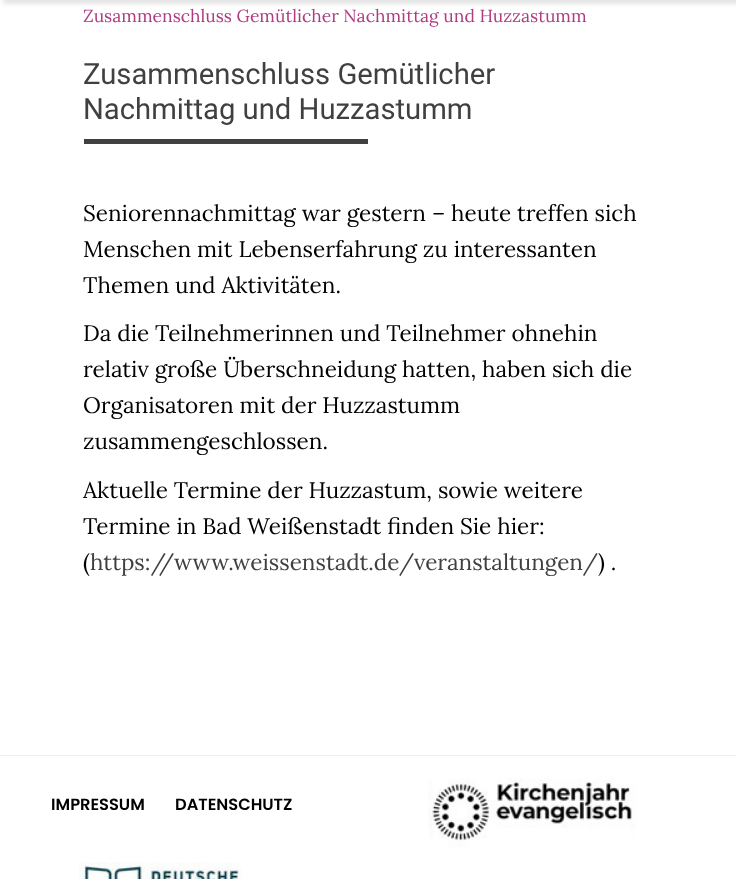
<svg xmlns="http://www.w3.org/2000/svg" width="736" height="879">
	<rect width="100%" height="100%" fill="#FFFFFF" />
	<rect x="3" y="-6" width="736" height="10" fill="#000000" fill-opacity="0.1" filter="blur(2px)" />
	<text x="83" y="22" font-family="Lora" font-size="17.5" fill="#AF3B82">Zusammenschluss Gemütlicher Nachmittag und Huzzastumm</text>
	<g font-family="Roboto" font-size="29.25" fill="#404040">
		<text x="83" y="84">Zusammenschluss Gemütlicher</text>
		<text x="83" y="119">Nachmittag und Huzzastumm</text>
	</g>
	<rect x="84" y="139" width="284" height="5" fill="#404040" />
	<g font-family="Lora" font-size="22.5" fill="#000000">
		<text x="83" y="221">Seniorennachmittag war gestern – heute treffen sich</text>
		<text x="83" y="257">Menschen mit Lebenserfahrung zu interessanten</text>
		<text x="83" y="293">Themen und Aktivitäten.</text>
		<text x="83" y="341">Da die Teilnehmerinnen und Teilnehmer ohnehin</text>
		<text x="83" y="377">relativ große Überschneidung hatten, haben sich die</text>
		<text x="83" y="413">Organisatoren mit der Huzzastumm</text>
		<text x="83" y="449">zusammengeschlossen.</text>
		<text x="83" y="498">Aktuelle Termine der Huzzastum, sowie weitere</text>
		<text x="83" y="534">Termine in Bad Weißenstadt finden Sie hier:</text>
		<text x="83" y="570">(</text>
	</g>
	<text x="90" y="570" font-family="Lora" font-size="22.5" fill="#404040">https://www.weissenstadt.de/veranstaltungen/</text>
	<text x="598" y="570" font-family="Lora" font-size="22.5" fill="#000000">) .</text>
	<rect x="0" y="755" width="736" height="1" fill="#EEEEEE" />
	<g font-family="Poppins" font-size="16.25" font-weight="600" fill="#000000">
		<text x="51" y="810">IMPRESSUM</text>
		<text x="175" y="810">DATENSCHUTZ</text>
	</g>
	<image x="428" y="778" width="208" height="70" href="assets/img1.png" />
	<image x="79" y="862" width="163" height="17" href="assets/img2.png" />
</svg>
